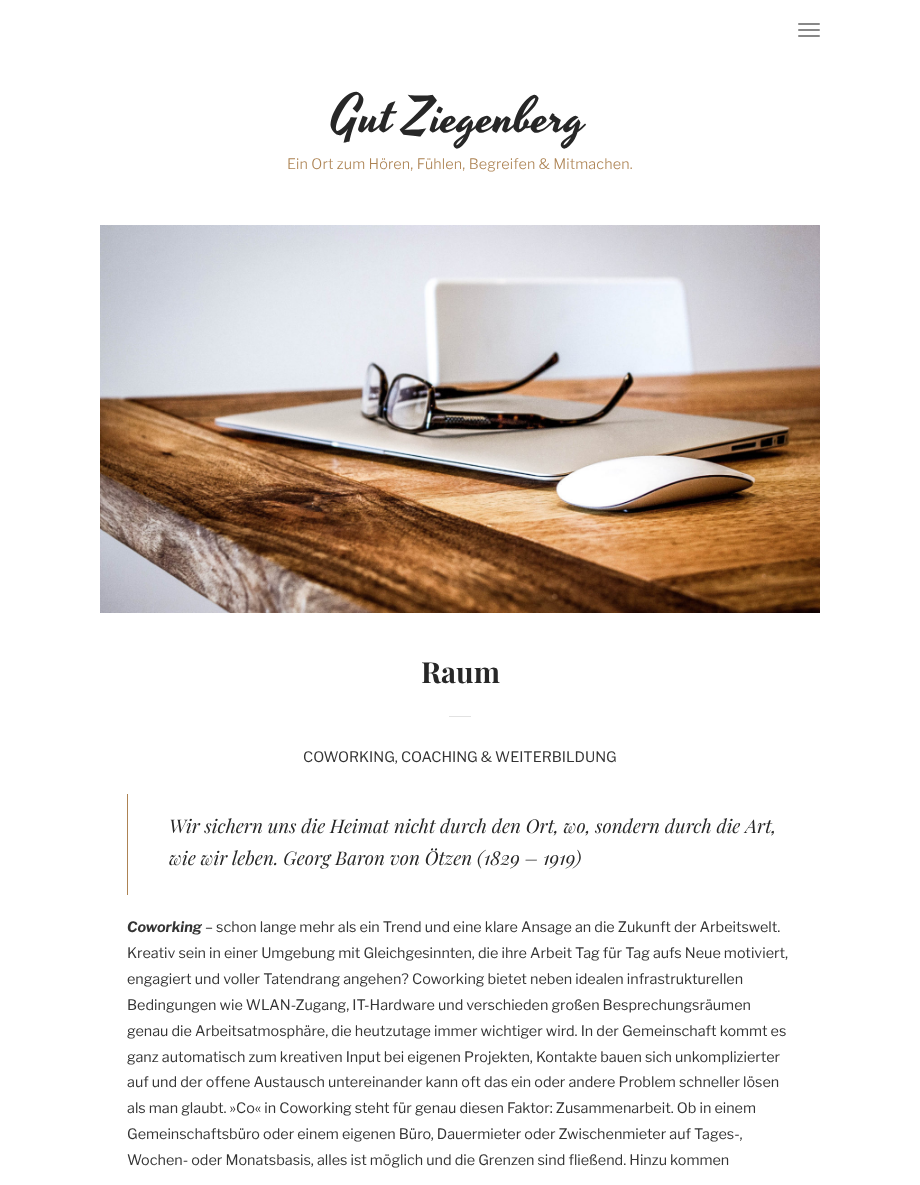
<svg xmlns="http://www.w3.org/2000/svg" width="920" height="1185">
	<rect width="100%" height="100%" fill="#FFFFFF" />
	<rect x="798" y="23" width="22" height="2" rx="1" fill="#888888" />
	<rect x="798" y="29" width="22" height="2" rx="1" fill="#888888" />
	<rect x="798" y="35" width="22" height="2" rx="1" fill="#888888" />
	<text x="331" y="131" font-family="Yesteryear" font-size="51.5" fill="#272727">Gut Ziegenberg</text>
	<text x="287" y="169" font-family="Libre Franklin" font-size="14.4" font-weight="300" letter-spacing="0.15" fill="#AD8353">Ein Ort zum Hören, Fühlen, Begreifen &amp; Mitmachen.</text>
	<image x="100" y="225" width="720" height="388" href="assets/img1.png" />
	<text x="421" y="683" font-family="Playfair Display" font-size="29" font-weight="700" fill="#272727">Raum</text>
	<rect x="449" y="716" width="22" height="1" fill="#E2E2E2" />
	<text x="303" y="762" font-family="Libre Franklin" font-size="14.4" fill="#343434">COWORKING, COACHING &amp; WEITERBILDUNG</text>
	<rect x="127" y="794" width="1" height="101" fill="#AD8353" />
	<g font-family="Playfair Display" font-size="18.9" font-style="italic" fill="#272727">
		<text x="169" y="833">Wir sichern uns die Heimat nicht durch den Ort, wo, sondern durch die Art,</text>
		<text x="169" y="865">wie wir leben. Georg Baron von Ötzen (1829 – 1919)</text>
	</g>
	<text x="127" y="932" font-family="Libre Franklin" font-size="14.4" font-weight="700" font-style="italic" fill="#343434">Coworking</text>
	<g font-family="Libre Franklin" font-size="14.4" fill="#343434">
		<text x="205" y="932">– schon lange mehr als ein Trend und eine klare Ansage an die Zukunft der Arbeitswelt.</text>
		<text x="127" y="958">Kreativ sein in einer Umgebung mit Gleichgesinnten, die ihre Arbeit Tag für Tag aufs Neue motiviert,</text>
		<text x="127" y="984">engagiert und voller Tatendrang angehen? Coworking bietet neben idealen infrastrukturellen</text>
		<text x="127" y="1010">Bedingungen wie WLAN-Zugang, IT-Hardware und verschieden großen Besprechungsräumen</text>
		<text x="127" y="1036">genau die Arbeitsatmosphäre, die heutzutage immer wichtiger wird. In der Gemeinschaft kommt es</text>
		<text x="127" y="1062">ganz automatisch zum kreativen Input bei eigenen Projekten, Kontakte bauen sich unkomplizierter</text>
		<text x="127" y="1087">auf und der offene Austausch untereinander kann oft das ein oder andere Problem schneller lösen</text>
		<text x="127" y="1113">als man glaubt. »Co« in Coworking steht für genau diesen Faktor: Zusammenarbeit. Ob in einem</text>
		<text x="127" y="1139">Gemeinschaftsbüro oder einem eigenen Büro, Dauermieter oder Zwischenmieter auf Tages-,</text>
		<text x="127" y="1165">Wochen- oder Monatsbasis, alles ist möglich und die Grenzen sind fließend. Hinzu kommen</text>
	</g>
</svg>
